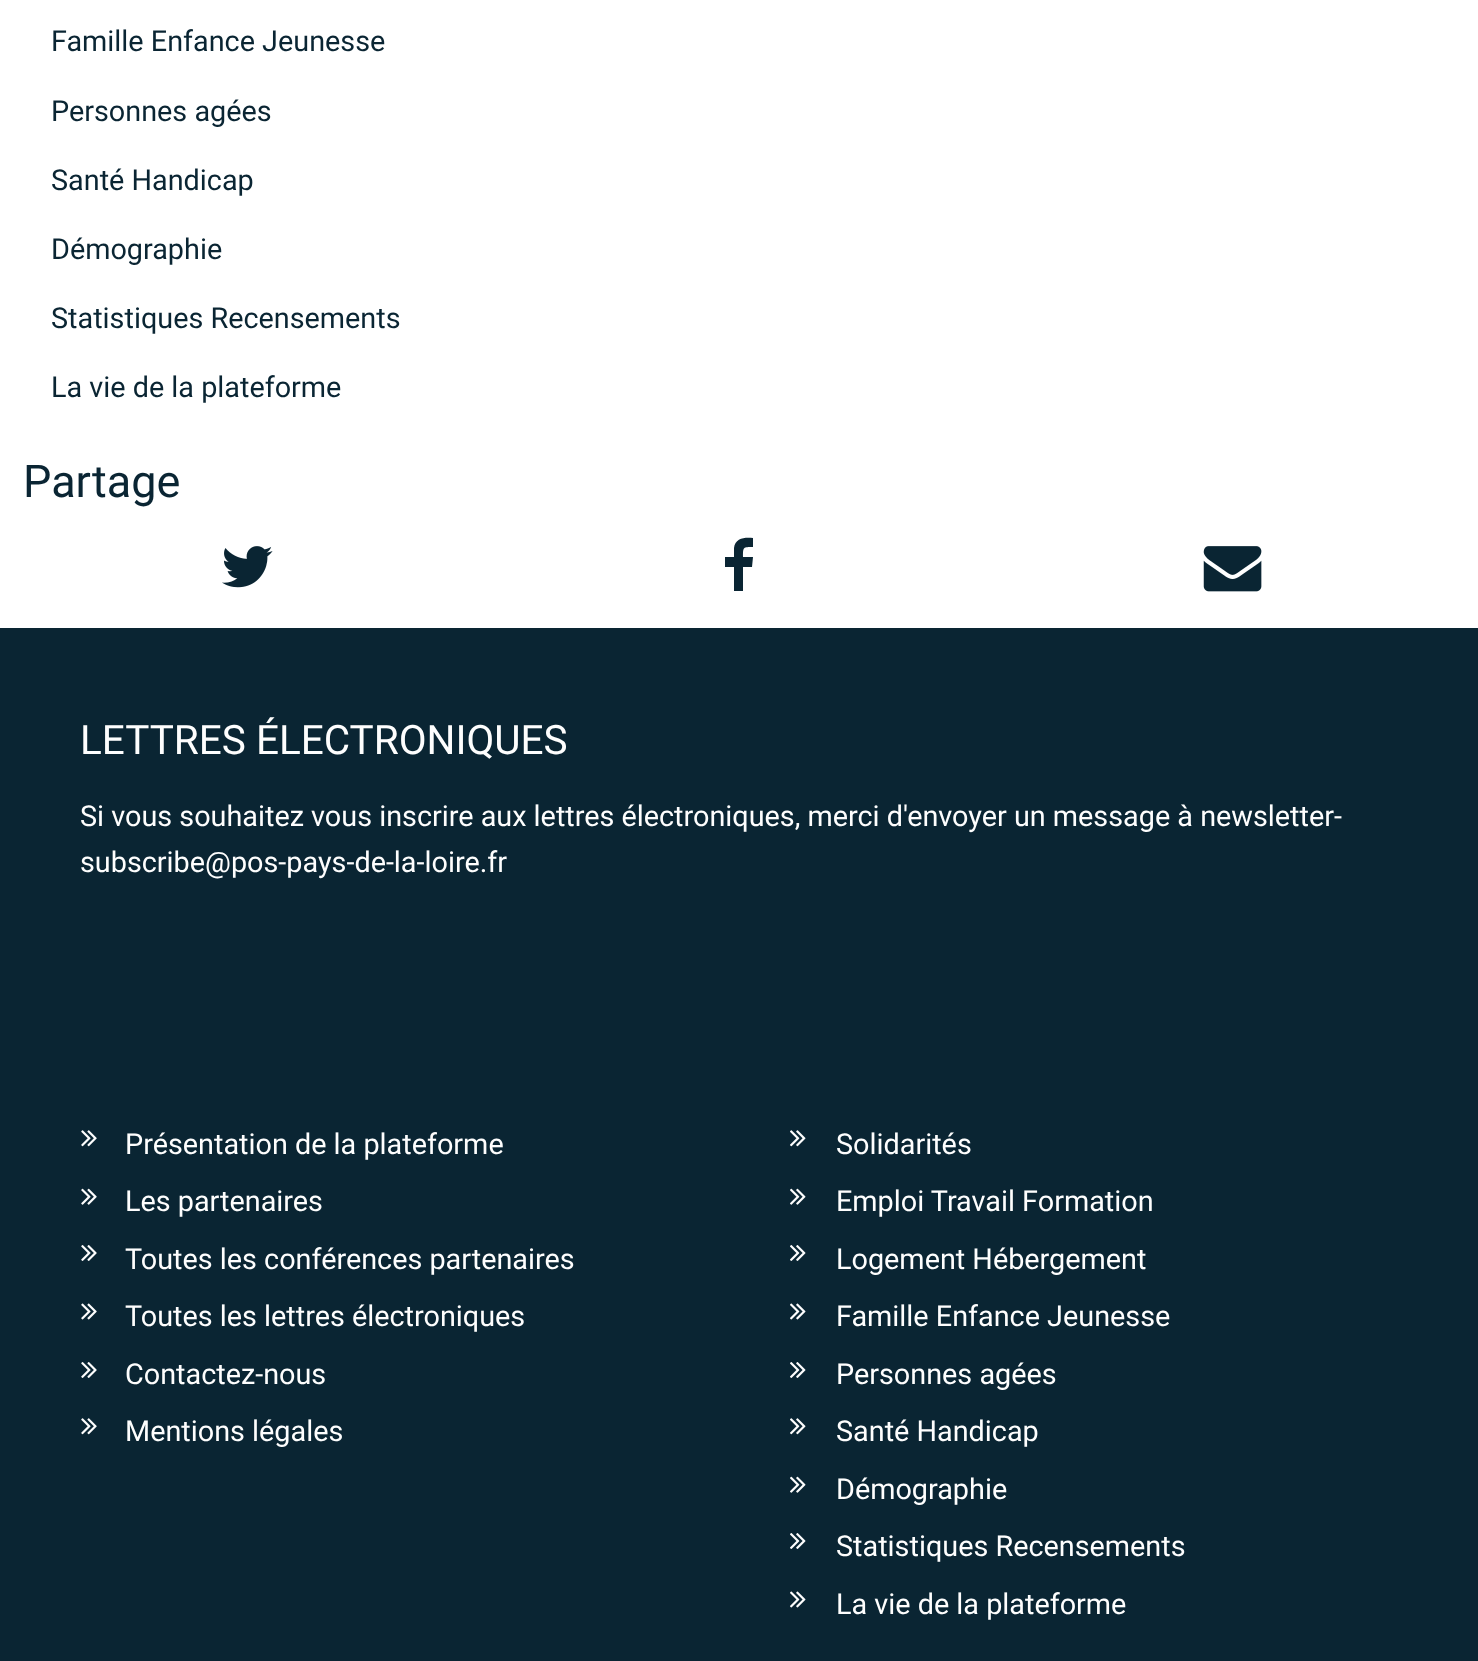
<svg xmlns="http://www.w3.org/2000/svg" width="1478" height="1661">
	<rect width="100%" height="100%" fill="#FFFFFF" />
	<g font-family="Roboto" font-size="28.8" fill="#0A2533">
		<text x="51" y="51">Famille Enfance Jeunesse</text>
		<text x="51" y="121">Personnes agées</text>
		<text x="51" y="190">Santé Handicap</text>
		<text x="51" y="259">Démographie</text>
		<text x="51" y="328">Statistiques Recensements</text>
		<text x="51" y="397">La vie de la plateforme</text>
	</g>
	<text x="23" y="497" font-family="Roboto" font-size="45" fill="#0A2533">Partage</text>
	<image x="222" y="546" width="51" height="42" href="assets/img1.png" />
	<path d="M753 538V547C743 547 743 547 743 557H753L752 567H743V591H734V567H725V557H734V548C735 538 745 537 753 538Z" fill="#0A2533" />
	<image x="1203" y="546" width="59" height="46" href="assets/img2.png" />
	<rect x="0" y="628" width="1478" height="1033" fill="#0A2533" />
	<text x="80" y="754" font-family="Roboto" font-size="40.5" fill="#FEFEFE">LETTRES ÉLECTRONIQUES</text>
	<g font-family="Roboto" font-size="28.8" fill="#FEFEFE">
		<text x="80" y="826">Si vous souhaitez vous inscrire aux lettres électroniques, merci d'envoyer un message à newsletter-</text>
		<text x="80" y="872">subscribe@pos-pays-de-la-loire.fr</text>
	</g>
	<image x="81" y="1130" width="16" height="17" href="assets/img3.png" />
	<text x="125" y="1154" font-family="Roboto" font-size="28.8" fill="#FEFEFE">Présentation de la plateforme</text>
	<image x="81" y="1188" width="16" height="17" href="assets/img4.png" />
	<text x="125" y="1211" font-family="Roboto" font-size="28.8" fill="#FEFEFE">Les partenaires</text>
	<image x="81" y="1245" width="16" height="16" href="assets/img5.png" />
	<text x="125" y="1269" font-family="Roboto" font-size="28.8" fill="#FEFEFE">Toutes les conférences partenaires</text>
	<image x="81" y="1303" width="16" height="17" href="assets/img6.png" />
	<text x="125" y="1326" font-family="Roboto" font-size="28.8" fill="#FEFEFE">Toutes les lettres électroniques</text>
	<image x="81" y="1362" width="16" height="16" href="assets/img5.png" />
	<text x="125" y="1384" font-family="Roboto" font-size="28.8" fill="#FEFEFE">Contactez-nous</text>
	<image x="81" y="1418" width="16" height="17" href="assets/img3.png" />
	<text x="125" y="1441" font-family="Roboto" font-size="28.8" fill="#FEFEFE">Mentions légales</text>
	<image x="790" y="1130" width="16" height="17" href="assets/img7.png" />
	<text x="836" y="1154" font-family="Roboto" font-size="28.8" fill="#FEFEFE">Solidarités</text>
	<image x="790" y="1188" width="16" height="17" href="assets/img8.png" />
	<text x="836" y="1211" font-family="Roboto" font-size="28.8" fill="#FEFEFE">Emploi Travail Formation</text>
	<image x="790" y="1245" width="16" height="16" href="assets/img9.png" />
	<text x="836" y="1269" font-family="Roboto" font-size="28.8" fill="#FEFEFE">Logement Hébergement</text>
	<image x="790" y="1303" width="16" height="17" href="assets/img10.png" />
	<text x="836" y="1326" font-family="Roboto" font-size="28.8" fill="#FEFEFE">Famille Enfance Jeunesse</text>
	<image x="790" y="1362" width="16" height="16" href="assets/img9.png" />
	<text x="836" y="1384" font-family="Roboto" font-size="28.8" fill="#FEFEFE">Personnes agées</text>
	<image x="790" y="1418" width="16" height="17" href="assets/img7.png" />
	<text x="836" y="1441" font-family="Roboto" font-size="28.8" fill="#FEFEFE">Santé Handicap</text>
	<image x="790" y="1476" width="16" height="17" href="assets/img8.png" />
	<text x="836" y="1499" font-family="Roboto" font-size="28.8" fill="#FEFEFE">Démographie</text>
	<image x="790" y="1533" width="16" height="16" href="assets/img9.png" />
	<text x="836" y="1556" font-family="Roboto" font-size="28.8" fill="#FEFEFE">Statistiques Recensements</text>
	<image x="790" y="1591" width="16" height="17" href="assets/img10.png" />
	<text x="836" y="1614" font-family="Roboto" font-size="28.8" fill="#FEFEFE">La vie de la plateforme</text>
</svg>
